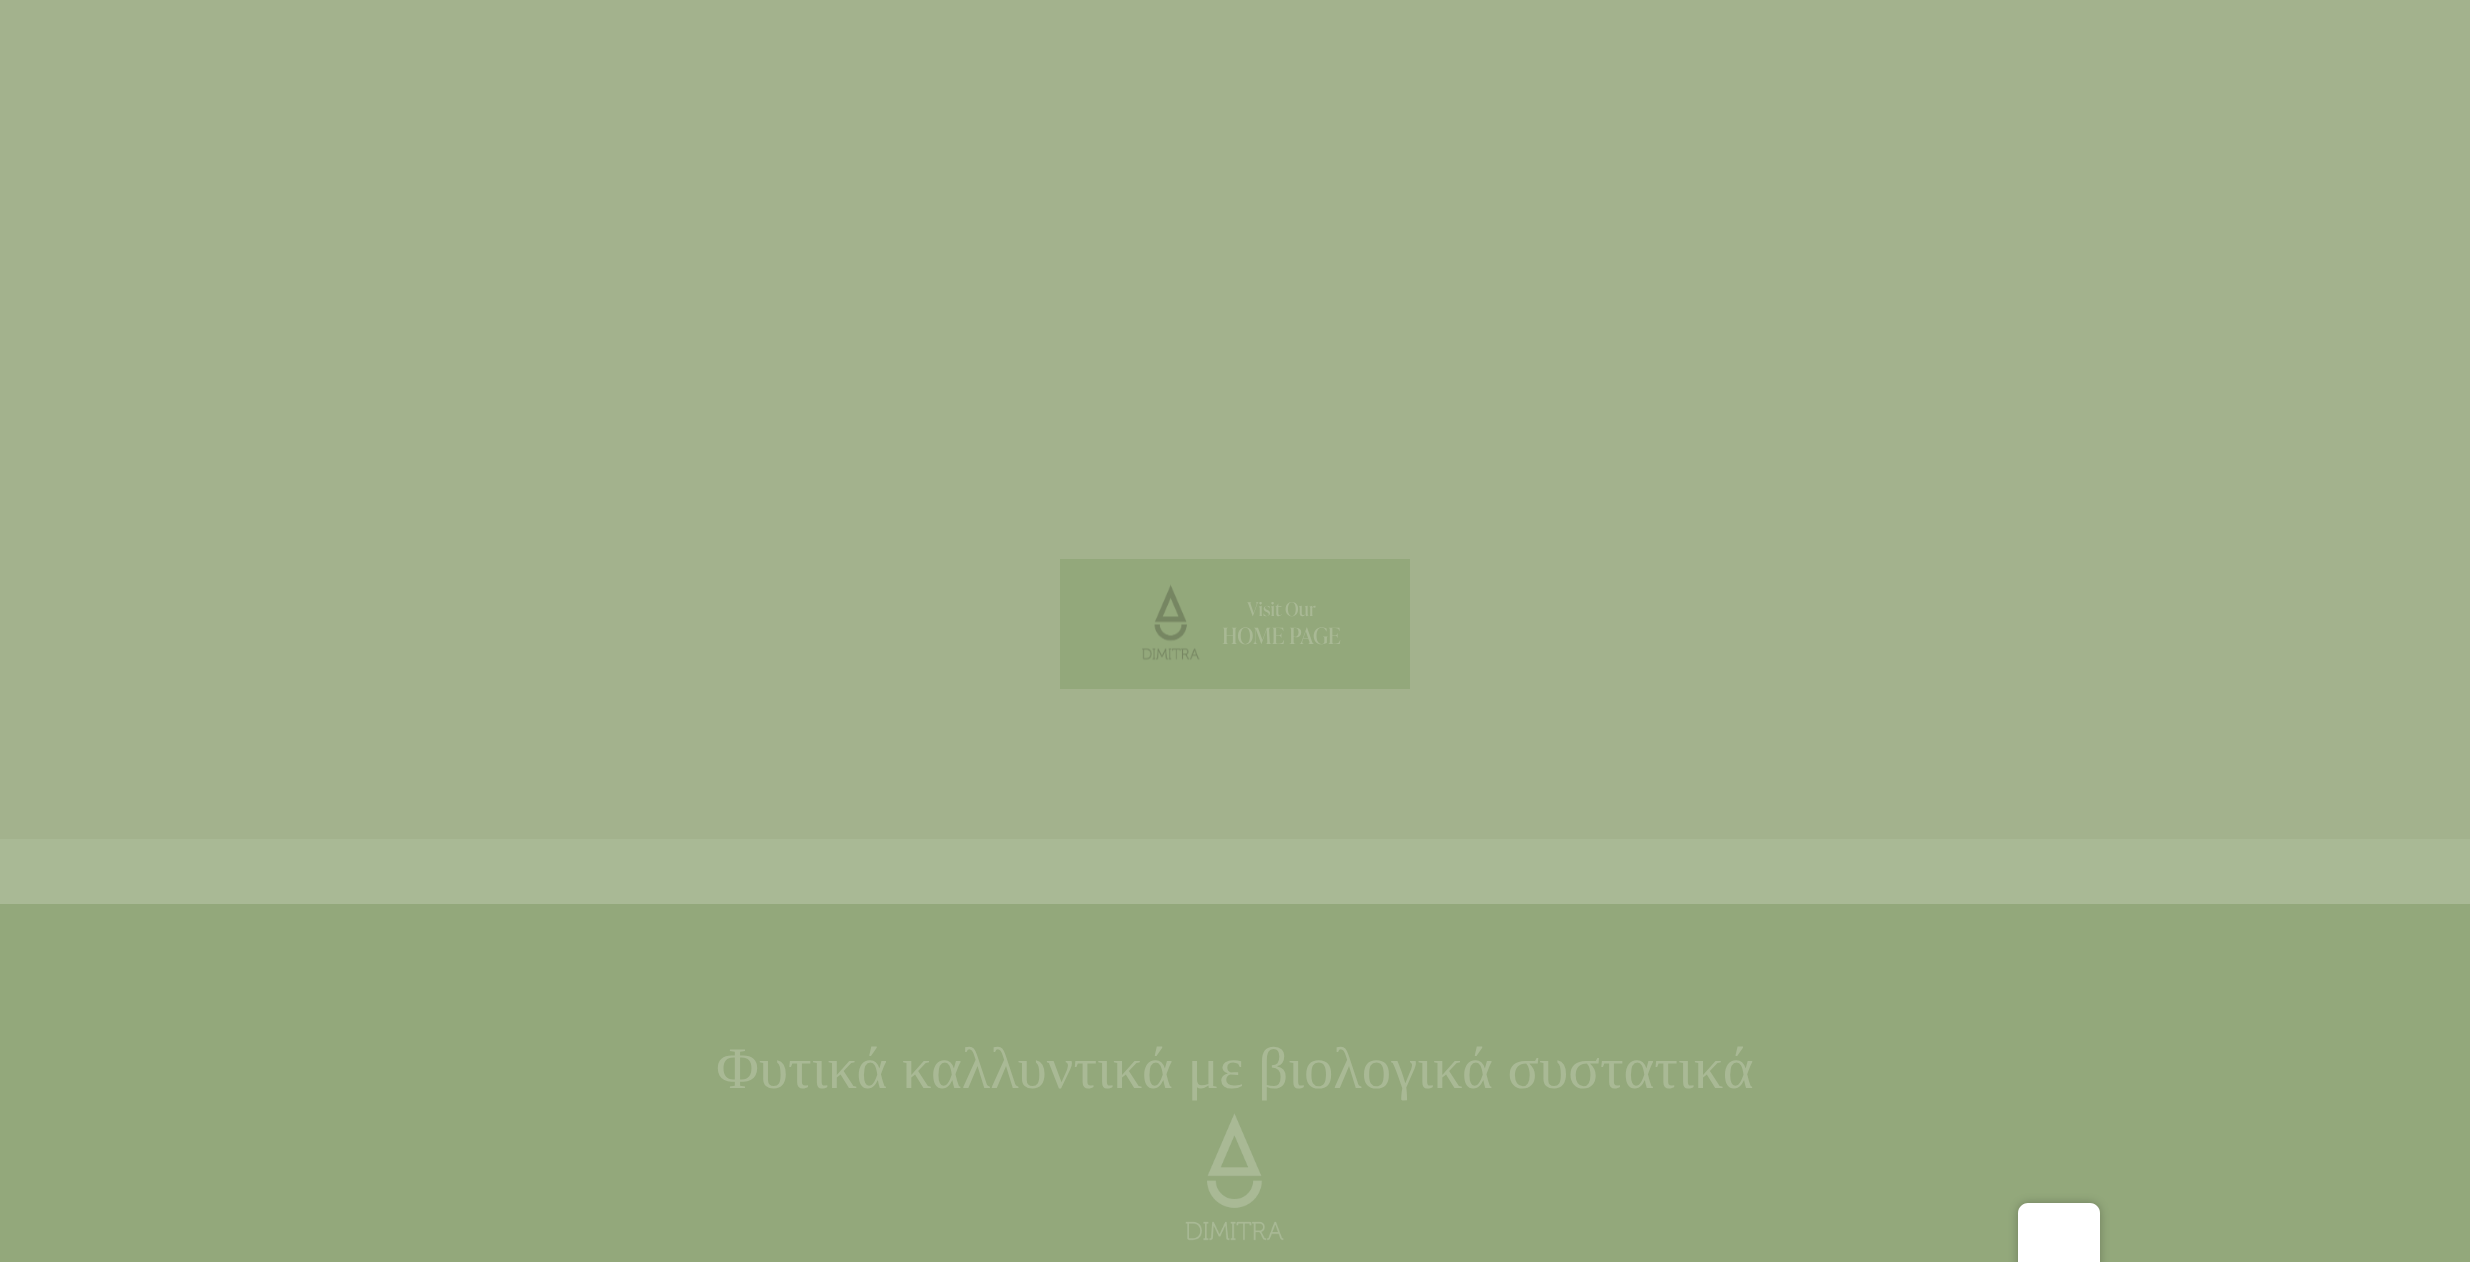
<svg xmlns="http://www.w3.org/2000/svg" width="2470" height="1262">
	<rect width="100%" height="100%" fill="#A9B995" />
	<rect x="0" y="0" width="2470" height="839" fill="#A3B28D" />
	<rect x="1060" y="559" width="350" height="130" fill="#93A87B" />
	<image x="1142" y="584" width="58" height="77" href="assets/img1.png" />
	<text x="1247" y="616" font-family="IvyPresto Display" font-size="19" fill="#A9B995">Visit Our</text>
	<text x="1222" y="644" font-family="IvyPresto Display" font-size="22.5" fill="#A9B995">HOME PAGE</text>
	<rect x="0" y="904" width="2470" height="358" fill="#93A87B" />
	<text x="716" y="1088" font-family="Liberation Serif" font-size="58.75" fill="#A9B995">Φυτικά καλλυντικά με βιολογικά συστατικά</text>
	<image x="1185" y="1113" width="99" height="128" href="assets/img2.png" />
	<rect x="2018" y="1203" width="82" height="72" rx="10" fill="#000000" fill-opacity="0.25" filter="blur(5px)" />
	<path d="M2028 1203H2090C2095.5 1203 2100 1207.5 2100 1213V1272H2018V1213C2018 1207.5 2022.5 1203 2028 1203Z" fill="#FFFFFF" />
</svg>
